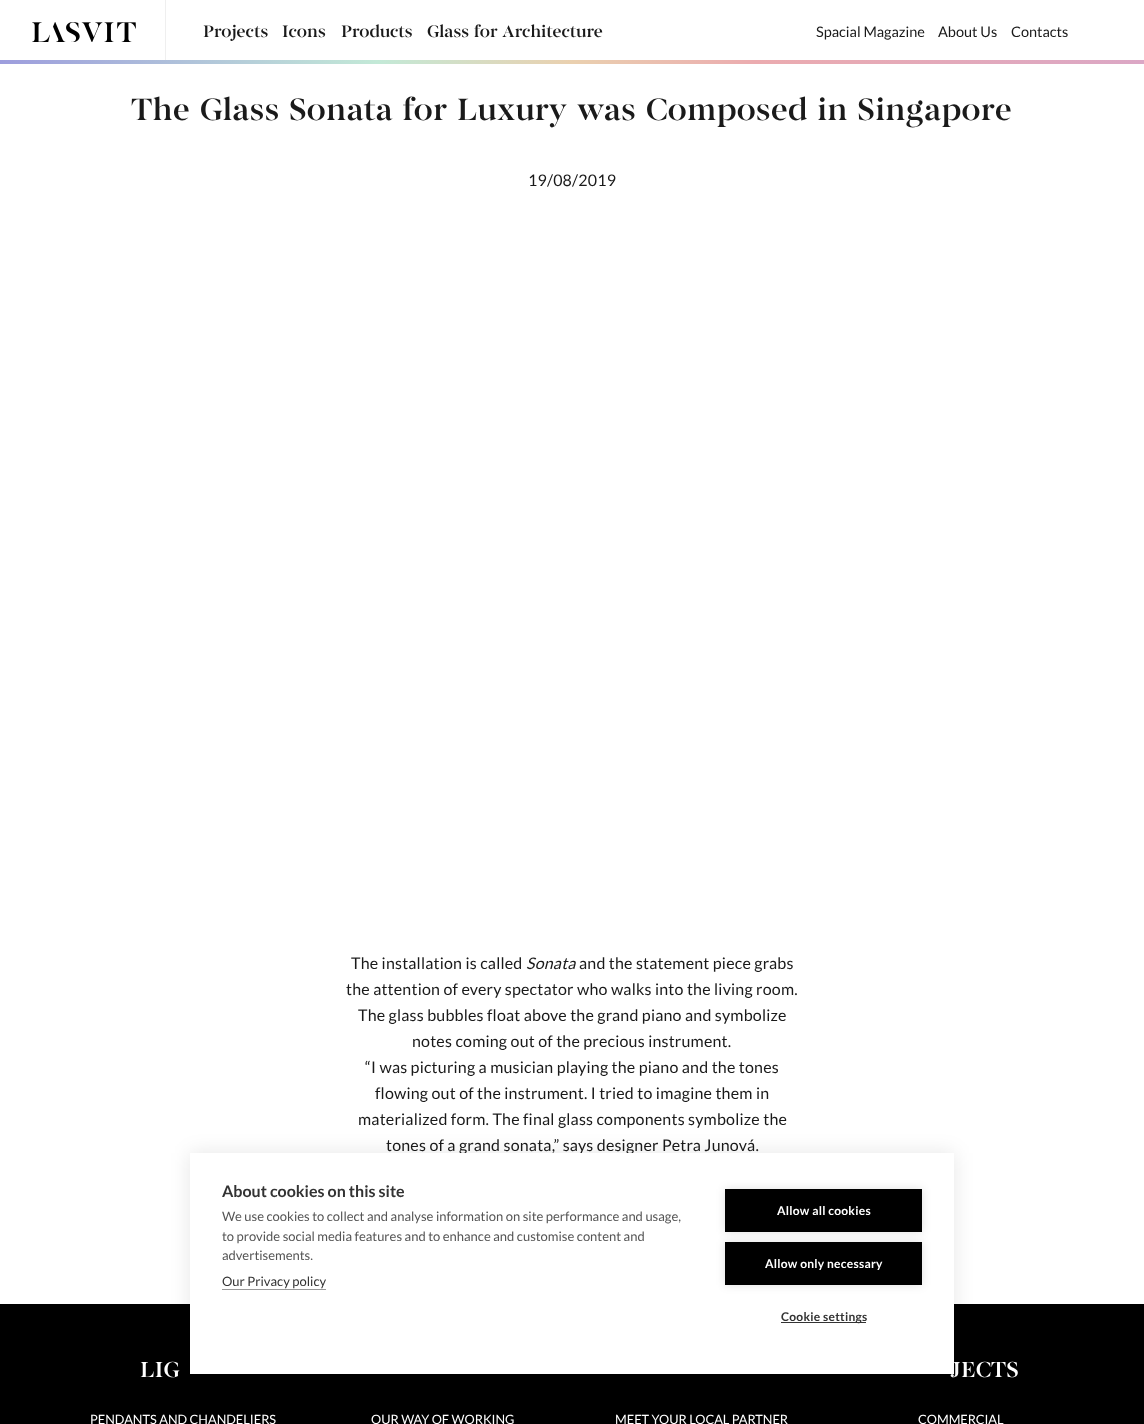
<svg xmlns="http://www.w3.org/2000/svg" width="1144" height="1424">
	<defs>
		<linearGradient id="g1" gradientUnits="userSpaceOnUse" x1="0" y1="62" x2="1144" y2="62"><stop offset="0" stop-color="#9D9DDD" /><stop offset="0.33" stop-color="#C3E9D7" /><stop offset="0.5" stop-color="#EAD0AF" /><stop offset="0.66" stop-color="#EBABAF" /><stop offset="1" stop-color="#DBA7C5" /></linearGradient>
	</defs>
	<rect width="100%" height="100%" fill="#000000" />
	<rect x="0" y="0" width="1144" height="1304" fill="#FFFFFF" />
	<image x="32" y="22" width="104" height="20" href="assets/img1.png" />
	<rect x="165" y="0" width="1" height="64" fill="#EFEFEF" />
	<g font-family="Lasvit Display" font-size="17.25" fill="#1A1A1A">
		<text x="203" y="37">Projects</text>
		<text x="282" y="37">Icons</text>
		<text x="341" y="37">Products</text>
		<text x="427" y="37">Glass for Architecture</text>
	</g>
	<g font-family="Lato" font-size="14.5" fill="#1A1A1A">
		<text x="816" y="37">Spacial Magazine</text>
		<text x="938" y="37">About Us</text>
		<text x="1011" y="37">Contacts</text>
	</g>
	<rect x="0" y="60" width="1144" height="4" fill="url(#g1)" />
	<text x="131" y="120" font-family="Lasvit Display" font-size="32" letter-spacing="0.38" fill="#1A1A1A">The Glass Sonata for Luxury was Composed in Singapore</text>
	<g font-family="Lato" font-size="16" letter-spacing="0.2" fill="#1A1A1A">
		<text x="528" y="186">19/08/2019</text>
		<text x="351" y="969">The installation is called</text>
	</g>
	<text x="526" y="969" font-family="Lato" font-size="16" font-style="italic" letter-spacing="0.2" fill="#1A1A1A">Sonata</text>
	<g font-family="Lato" font-size="16" letter-spacing="0.2" fill="#1A1A1A">
		<text x="579" y="969">and the statement piece grabs</text>
		<text x="346" y="995">the attention of every spectator who walks into the living room.</text>
		<text x="358" y="1021">The glass bubbles float above the grand piano and symbolize</text>
		<text x="412" y="1047">notes coming out of the precious instrument.</text>
		<text x="365" y="1073">“I was picturing a musician playing the piano and the tones</text>
		<text x="375" y="1099">flowing out of the instrument. I tried to imagine them in</text>
		<text x="358" y="1125">materialized form. The final glass components symbolize the</text>
		<text x="386" y="1151">tones of a grand sonata,” says designer Petra Junová.</text>
	</g>
	<text x="140" y="1377" font-family="Lasvit Display" font-size="22.5" letter-spacing="0.25" fill="#FFFFFF">LIG</text>
	<g font-family="Lato" font-size="12.75" fill="#FFFFFF">
		<text x="90" y="1424">PENDANTS AND CHANDELIERS</text>
		<text x="371" y="1424">OUR WAY OF WORKING</text>
		<text x="615" y="1424">MEET YOUR LOCAL PARTNER</text>
	</g>
	<text x="950" y="1377" font-family="Lasvit Display" font-size="22.5" letter-spacing="0.25" fill="#FFFFFF">JECTS</text>
	<text x="918" y="1424" font-family="Lato" font-size="12.75" fill="#FFFFFF">COMMERCIAL</text>
	<rect x="190" y="1153" width="764" height="221" fill="#000000" fill-opacity="0.1" filter="blur(10px)" />
	<rect x="190" y="1153" width="764" height="221" fill="#FFFFFF" />
	<text x="222" y="1197" font-family="Lato" font-size="16" font-weight="700" fill="#333333">About cookies on this site</text>
	<g font-family="Lato" font-size="13" fill="#555555">
		<text x="222" y="1221">We use cookies to collect and analyse information on site performance and usage,</text>
		<text x="222" y="1241">to provide social media features and to enhance and customise content and</text>
		<text x="222" y="1260">advertisements.</text>
	</g>
	<text x="222" y="1286" font-family="Lato" font-size="13" fill="#333333">Our Privacy policy</text>
	<rect x="222" y="1289" width="104" height="1" fill="#999999" />
	<rect x="725" y="1189" width="197" height="43" fill="#000000" fill-opacity="0.12" filter="blur(5px)" />
	<rect x="725" y="1189" width="197" height="43" fill="#000000" />
	<text x="777" y="1215" font-family="Lato" font-size="12" font-weight="700" letter-spacing="0.25" fill="#FFFFFF">Allow all cookies</text>
	<rect x="725" y="1242" width="197" height="43" fill="#000000" fill-opacity="0.12" filter="blur(5px)" />
	<rect x="725" y="1242" width="197" height="43" fill="#000000" />
	<text x="765" y="1268" font-family="Lato" font-size="12" font-weight="700" letter-spacing="0.25" fill="#FFFFFF">Allow only necessary</text>
	<rect x="781" y="1322" width="85" height="1" fill="#333333" />
	<text x="781" y="1321" font-family="Lato" font-size="12" font-weight="700" letter-spacing="0.25" fill="#333333">Cookie settings</text>
</svg>
